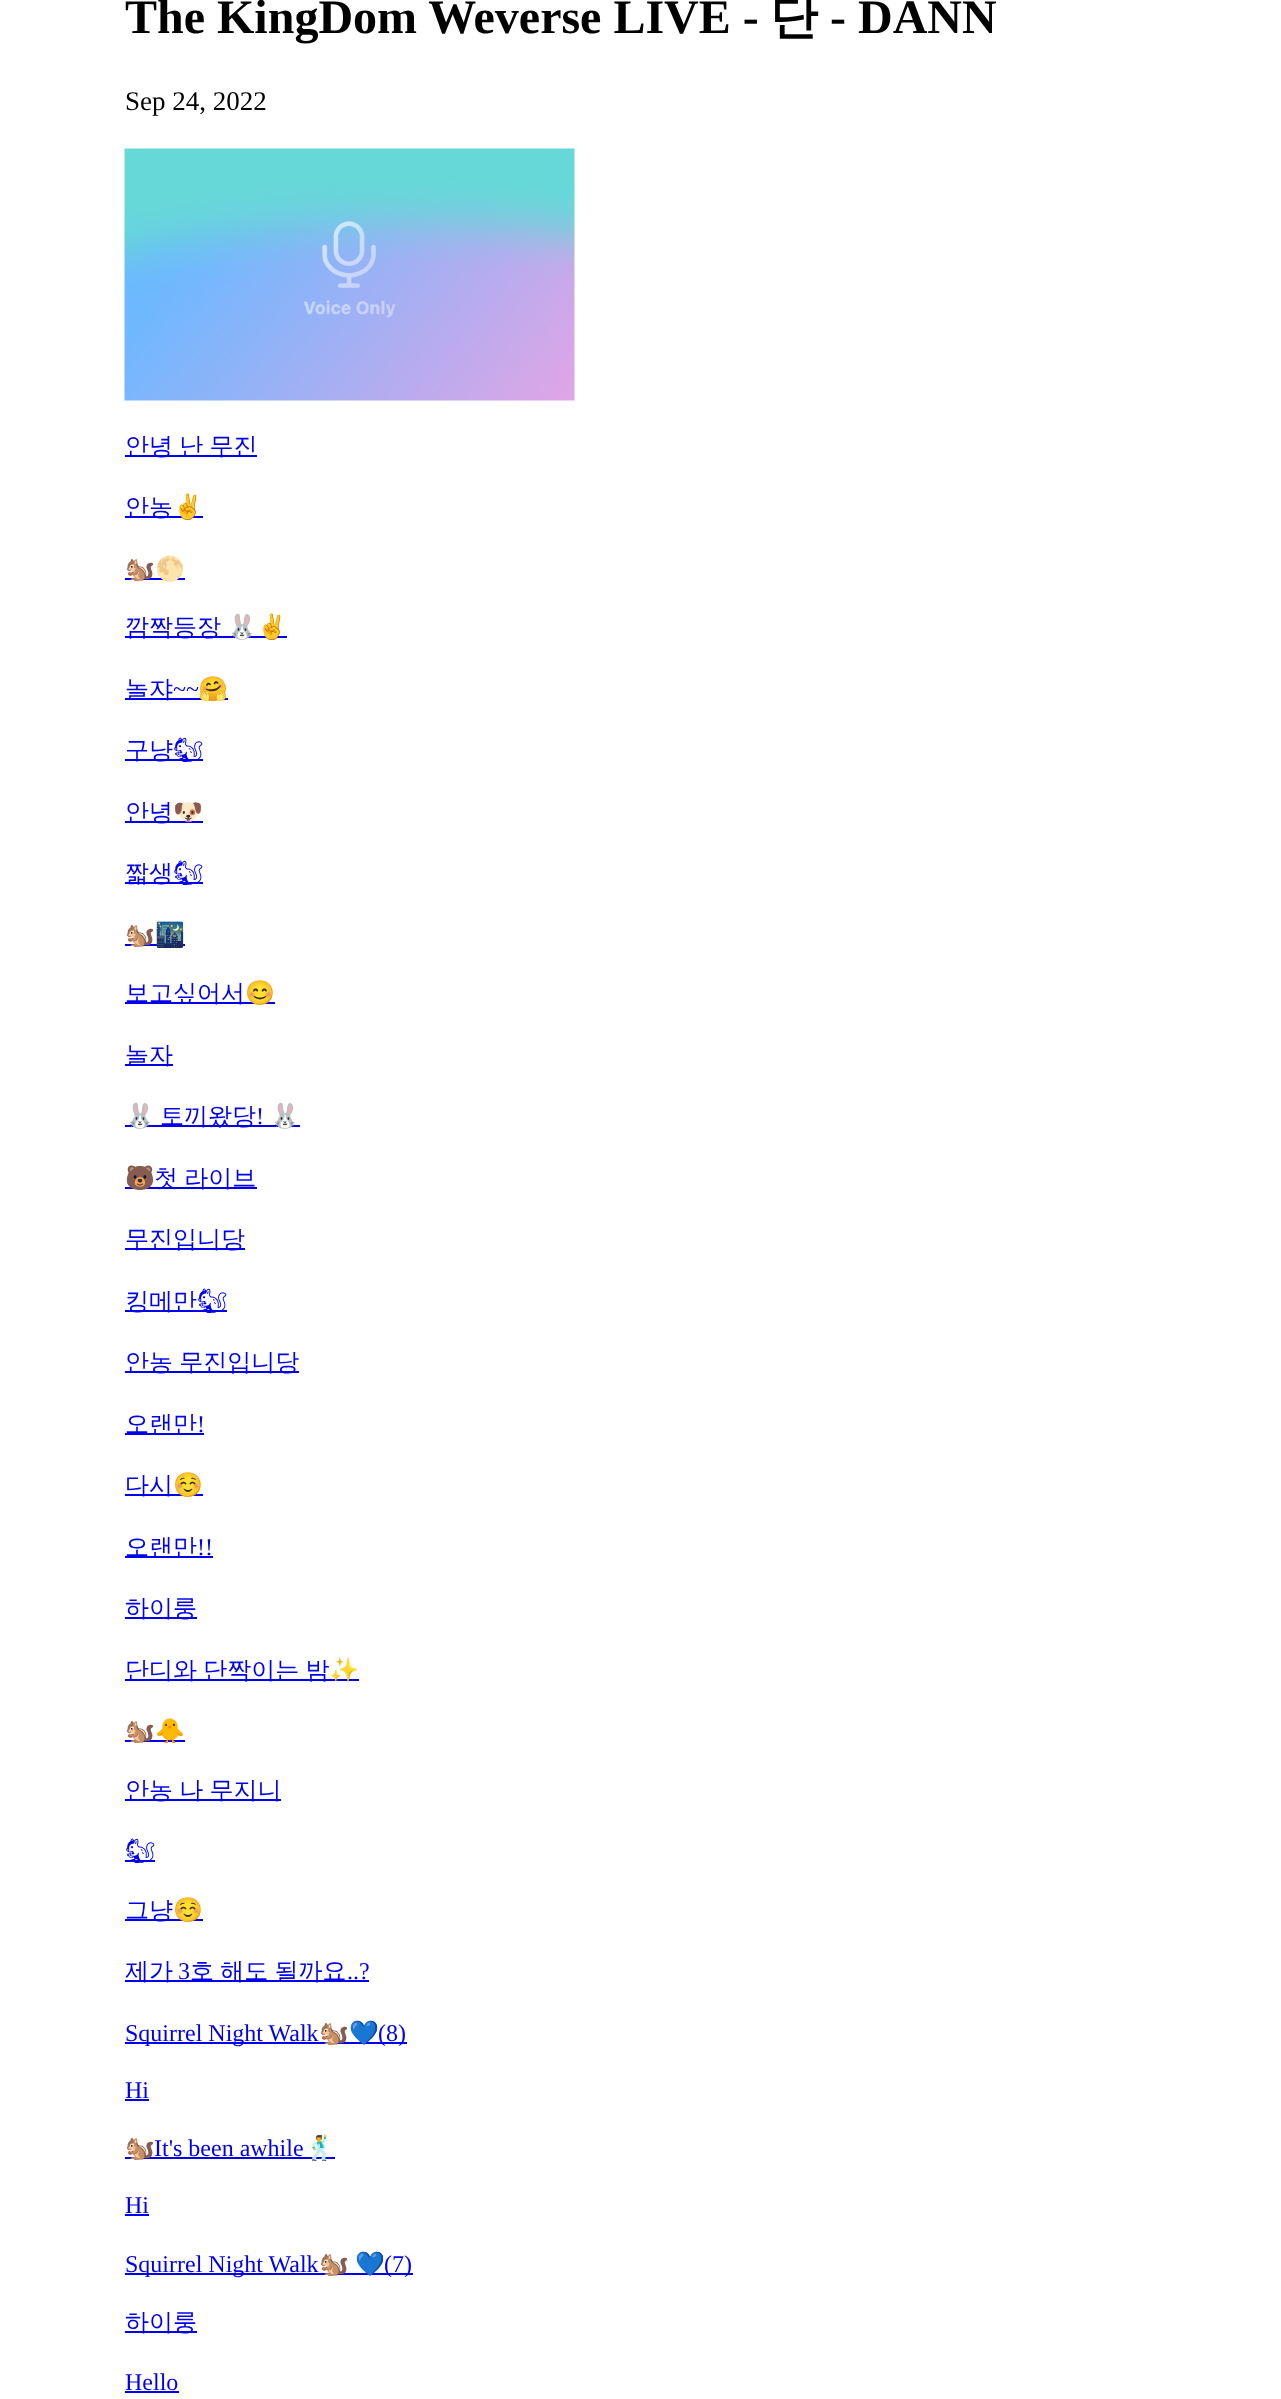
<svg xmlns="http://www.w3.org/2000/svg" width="1281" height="2399">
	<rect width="100%" height="100%" fill="#FFFFFF" />
	<text x="125" y="33" font-family="Liberation Serif" font-size="48" font-weight="700" fill="#000000">The KingDom Weverse LIVE -</text>
	<text x="770" y="33" font-family="WenQuanYi Zen Hei" font-size="48" font-weight="700" fill="#000000">단</text>
	<text x="830" y="33" font-family="Liberation Serif" font-size="48" font-weight="700" fill="#000000">- DANN</text>
	<text x="125" y="110" font-family="Liberation Serif" font-size="27" fill="#000000">Sep 24, 2022</text>
	<image x="124" y="148" width="451" height="253" href="assets/img1.png" />
	<rect x="125" y="455" width="132" height="2" fill="#0000EE" />
	<text x="125" y="454" word-spacing="-1" font-family="WenQuanYi Zen Hei" font-size="24" font-weight="500" fill="#0000EE">안녕 난 무진</text>
	<rect x="125" y="516" width="78" height="2" fill="#0000EE" />
	<text x="125" y="515" font-family="WenQuanYi Zen Hei" font-size="24" font-weight="500" fill="#0000EE">안농</text>
	<text x="173" y="515" font-family="Noto Color Emoji" font-size="24" fill="#0000EE">✌️</text>
	<rect x="125" y="578" width="60" height="2" fill="#0000EE" />
	<text x="125" y="577" font-family="Noto Color Emoji" font-size="24" fill="#0000EE">🐿🌕</text>
	<rect x="125" y="636" width="162" height="2" fill="#0000EE" />
	<text x="125" y="635" font-family="WenQuanYi Zen Hei" font-size="24" font-weight="500" fill="#0000EE">깜짝등장</text>
	<text x="227" y="635" font-family="Noto Color Emoji" font-size="24" fill="#0000EE">🐰✌️</text>
	<rect x="125" y="698" width="103" height="2" fill="#0000EE" />
	<text x="125" y="697" font-family="WenQuanYi Zen Hei" font-size="24" font-weight="500" fill="#0000EE">놀쟈</text>
	<text x="173" y="697" font-family="Liberation Serif" font-size="24" fill="#0000EE">~~</text>
	<text x="198" y="697" font-family="Noto Color Emoji" font-size="24" fill="#0000EE">🤗</text>
	<rect x="125" y="759" width="78" height="2" fill="#0000EE" />
	<text x="125" y="758" font-family="WenQuanYi Zen Hei" font-size="24" font-weight="500" fill="#0000EE">구냥</text>
	<text x="173" y="758" font-family="Noto Emoji" font-size="24" fill="#0000EE">🐿</text>
	<rect x="125" y="821" width="78" height="2" fill="#0000EE" />
	<text x="125" y="820" font-family="WenQuanYi Zen Hei" font-size="24" font-weight="500" fill="#0000EE">안녕</text>
	<text x="173" y="820" font-family="Noto Color Emoji" font-size="24" fill="#0000EE">🐶</text>
	<rect x="125" y="882" width="78" height="2" fill="#0000EE" />
	<text x="125" y="881" font-family="WenQuanYi Zen Hei" font-size="24" font-weight="500" fill="#0000EE">짧생</text>
	<text x="173" y="881" font-family="Noto Emoji" font-size="24" fill="#0000EE">🐿</text>
	<rect x="125" y="944" width="60" height="2" fill="#0000EE" />
	<text x="125" y="943" font-family="Noto Color Emoji" font-size="24" fill="#0000EE">🐿🌃</text>
	<rect x="125" y="1002" width="150" height="2" fill="#0000EE" />
	<text x="125" y="1001" font-family="WenQuanYi Zen Hei" font-size="24" font-weight="500" fill="#0000EE">보고싶어서</text>
	<text x="245" y="1001" font-family="Noto Color Emoji" font-size="24" fill="#0000EE">😊</text>
	<rect x="125" y="1064" width="48" height="2" fill="#0000EE" />
	<text x="125" y="1063" font-family="WenQuanYi Zen Hei" font-size="24" font-weight="500" fill="#0000EE">놀자</text>
	<rect x="125" y="1125" width="175" height="2" fill="#0000EE" />
	<text x="125" y="1124" font-family="Noto Color Emoji" font-size="24" fill="#0000EE">🐰</text>
	<text x="160" y="1124" font-family="WenQuanYi Zen Hei" font-size="24" font-weight="500" fill="#0000EE">토끼왔당</text>
	<text x="256" y="1124" font-family="Liberation Serif" font-size="24" fill="#0000EE">!</text>
	<text x="270" y="1124" font-family="Noto Color Emoji" font-size="24" fill="#0000EE">🐰</text>
	<rect x="125" y="1187" width="132" height="2" fill="#0000EE" />
	<text x="125" y="1186" font-family="Noto Color Emoji" font-size="24" fill="#0000EE">🐻</text>
	<text x="154" y="1186" word-spacing="-1" font-family="WenQuanYi Zen Hei" font-size="24" font-weight="500" fill="#0000EE">첫 라이브</text>
	<rect x="125" y="1248" width="120" height="2" fill="#0000EE" />
	<text x="125" y="1247" font-family="WenQuanYi Zen Hei" font-size="24" font-weight="500" fill="#0000EE">무진입니당</text>
	<rect x="125" y="1310" width="102" height="2" fill="#0000EE" />
	<text x="125" y="1309" font-family="WenQuanYi Zen Hei" font-size="24" font-weight="500" fill="#0000EE">킹메만</text>
	<text x="197" y="1309" font-family="Noto Emoji" font-size="24" fill="#0000EE">🐿</text>
	<rect x="125" y="1371" width="174" height="2" fill="#0000EE" />
	<text x="125" y="1370" word-spacing="-1" font-family="WenQuanYi Zen Hei" font-size="24" font-weight="500" fill="#0000EE">안농 무진입니당</text>
	<rect x="125" y="1433" width="79" height="2" fill="#0000EE" />
	<text x="125" y="1432" font-family="WenQuanYi Zen Hei" font-size="24" font-weight="500" fill="#0000EE">오랜만</text>
	<text x="197" y="1432" font-family="Liberation Serif" font-size="24" fill="#0000EE">!</text>
	<rect x="125" y="1494" width="78" height="2" fill="#0000EE" />
	<text x="125" y="1493" font-family="WenQuanYi Zen Hei" font-size="24" font-weight="500" fill="#0000EE">다시</text>
	<text x="173" y="1493" font-family="Noto Color Emoji" font-size="24" fill="#0000EE">☺️</text>
	<rect x="125" y="1556" width="88" height="2" fill="#0000EE" />
	<text x="125" y="1555" font-family="WenQuanYi Zen Hei" font-size="24" font-weight="500" fill="#0000EE">오랜만</text>
	<text x="197" y="1555" font-family="Liberation Serif" font-size="24" fill="#0000EE">!!</text>
	<rect x="125" y="1617" width="72" height="2" fill="#0000EE" />
	<text x="125" y="1616" font-family="WenQuanYi Zen Hei" font-size="24" font-weight="500" fill="#0000EE">하이룽</text>
	<rect x="125" y="1679" width="234" height="2" fill="#0000EE" />
	<text x="125" y="1678" word-spacing="-1" font-family="WenQuanYi Zen Hei" font-size="24" font-weight="500" fill="#0000EE">단디와 단짝이는 밤</text>
	<text x="329" y="1678" font-family="Noto Color Emoji" font-size="24" fill="#0000EE">✨</text>
	<rect x="125" y="1740" width="60" height="2" fill="#0000EE" />
	<text x="125" y="1739" font-family="Noto Color Emoji" font-size="24" fill="#0000EE">🐿🐥</text>
	<rect x="125" y="1799" width="156" height="2" fill="#0000EE" />
	<text x="125" y="1798" word-spacing="-1" font-family="WenQuanYi Zen Hei" font-size="24" font-weight="500" fill="#0000EE">안농 나 무지니</text>
	<rect x="125" y="1860" width="30" height="2" fill="#0000EE" />
	<text x="125" y="1859" font-family="Noto Emoji" font-size="24" fill="#0000EE">🐿</text>
	<rect x="125" y="1919" width="78" height="2" fill="#0000EE" />
	<text x="125" y="1918" font-family="WenQuanYi Zen Hei" font-size="24" font-weight="500" fill="#0000EE">그냥</text>
	<text x="173" y="1918" font-family="Noto Color Emoji" font-size="24" fill="#0000EE">☺️</text>
	<rect x="125" y="1980" width="244" height="2" fill="#0000EE" />
	<text x="125" y="1979" font-family="WenQuanYi Zen Hei" font-size="24" font-weight="500" fill="#0000EE">제가</text>
	<text x="178" y="1979" font-family="Liberation Serif" font-size="24" fill="#0000EE">3</text>
	<text x="190" y="1979" word-spacing="-1" font-family="WenQuanYi Zen Hei" font-size="24" font-weight="500" fill="#0000EE">호 해도 될까요</text>
	<text x="347" y="1979" font-family="Liberation Serif" font-size="24" fill="#0000EE">..?</text>
	<rect x="125" y="2042" width="282" height="2" fill="#0000EE" />
	<text x="125" y="2041" font-family="Liberation Serif" font-size="24" fill="#0000EE">Squirrel Night Walk</text>
	<text x="319" y="2041" font-family="Noto Color Emoji" font-size="24" fill="#0000EE">🐿💙</text>
	<g font-family="Liberation Serif" font-size="24" fill="#0000EE">
		<text x="378" y="2041">(8)</text>
		<text x="125" y="2098">Hi</text>
	</g>
	<rect x="125" y="2099" width="24" height="2" fill="#0000EE" />
	<rect x="125" y="2157" width="210" height="2" fill="#0000EE" />
	<text x="125" y="2156" font-family="Noto Color Emoji" font-size="24" fill="#0000EE">🐿</text>
	<text x="154" y="2156" font-family="Liberation Serif" font-size="24" fill="#0000EE">It's been awhile</text>
	<text x="305" y="2156" font-family="Noto Color Emoji" font-size="24" fill="#0000EE">🕺</text>
	<text x="125" y="2213" font-family="Liberation Serif" font-size="24" fill="#0000EE">Hi</text>
	<rect x="125" y="2214" width="24" height="2" fill="#0000EE" />
	<rect x="125" y="2273" width="288" height="2" fill="#0000EE" />
	<text x="125" y="2272" font-family="Liberation Serif" font-size="24" fill="#0000EE">Squirrel Night Walk</text>
	<g font-family="Noto Color Emoji" font-size="24" fill="#0000EE">
		<text x="319" y="2272">🐿</text>
		<text x="355" y="2272">💙</text>
	</g>
	<text x="384" y="2272" font-family="Liberation Serif" font-size="24" fill="#0000EE">(7)</text>
	<rect x="125" y="2331" width="72" height="2" fill="#0000EE" />
	<text x="125" y="2330" font-family="WenQuanYi Zen Hei" font-size="24" font-weight="500" fill="#0000EE">하이룽</text>
	<text x="125" y="2390" font-family="Liberation Serif" font-size="24" fill="#0000EE">Hello</text>
	<rect x="125" y="2391" width="54" height="2" fill="#0000EE" />
</svg>
